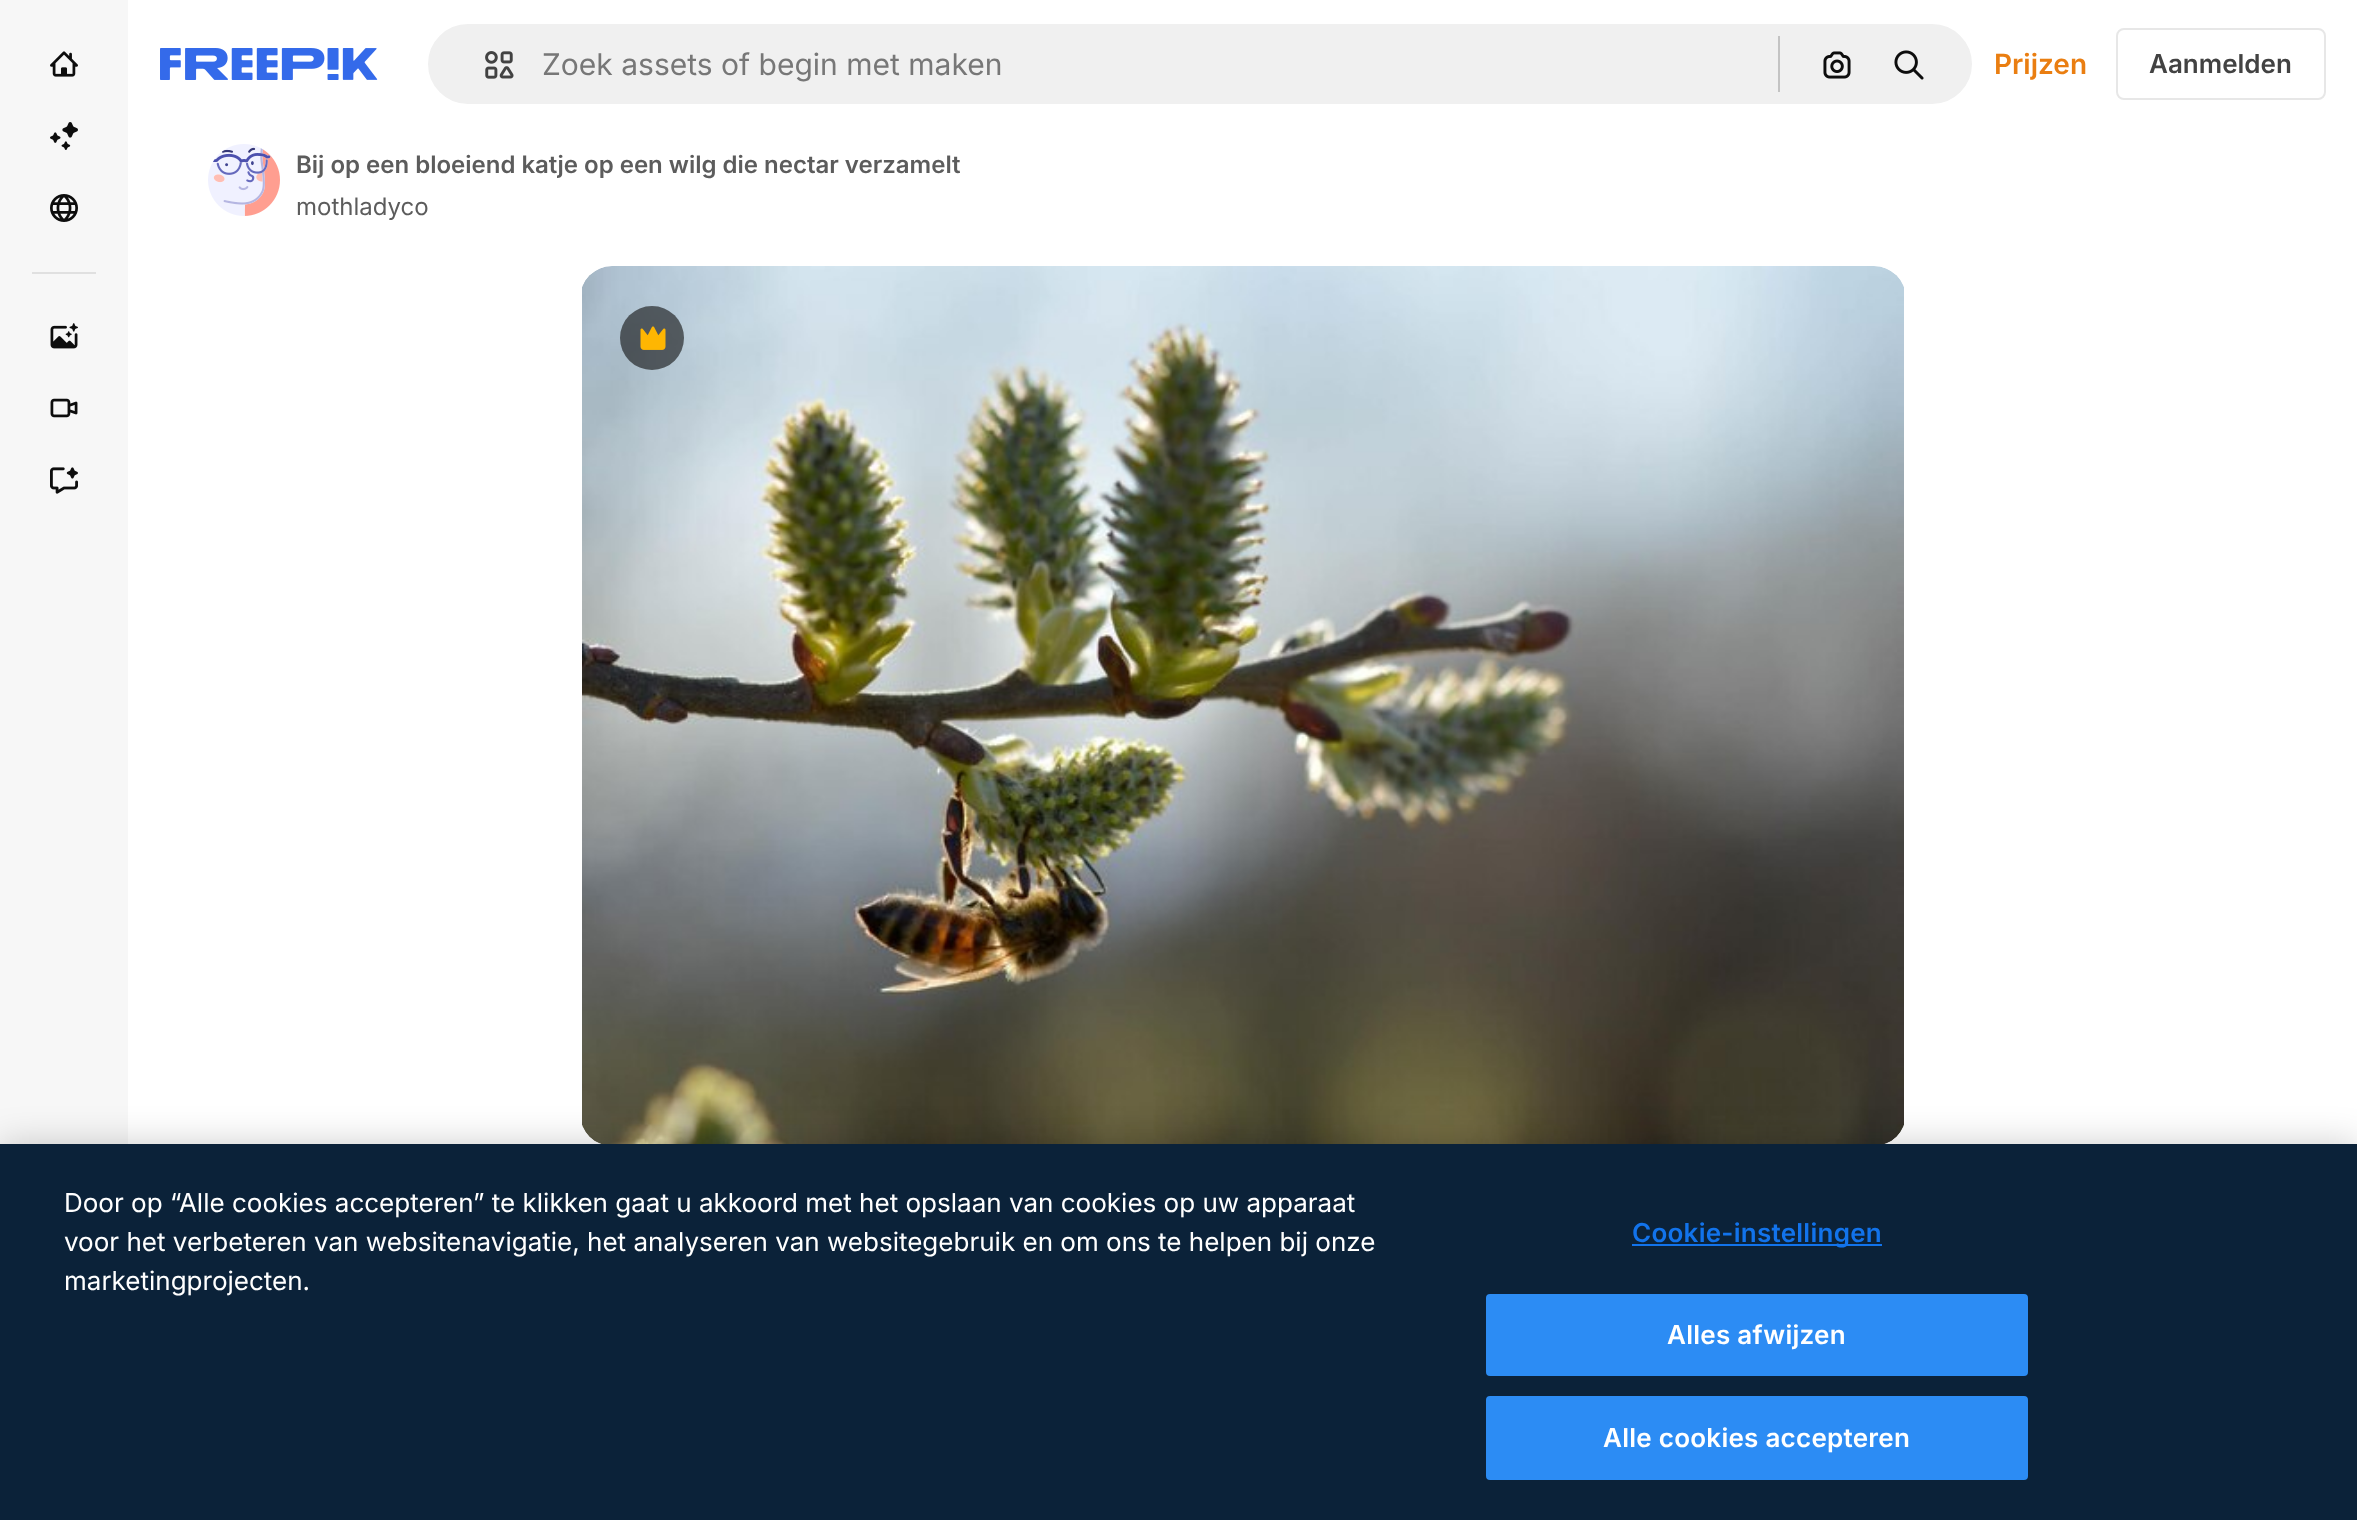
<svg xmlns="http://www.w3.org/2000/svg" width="2357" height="1520">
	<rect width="100%" height="100%" fill="#FFFFFF" />
	<rect x="0" y="0" width="128" height="1144" fill="#F7F7F7" />
	<image x="50" y="51" width="28" height="26" href="assets/img1.png" />
	<image x="50" y="122" width="28" height="28" href="assets/img2.png" />
	<image x="50" y="194" width="28" height="28" href="assets/img3.png" />
	<rect x="32" y="272" width="64" height="2" fill="#E0E0E0" />
	<image x="50" y="323" width="28" height="26" href="assets/img4.png" />
	<image x="50" y="398" width="28" height="20" href="assets/img5.png" />
	<image x="50" y="467" width="28" height="27" href="assets/img6.png" />
	<image x="160" y="48" width="218" height="32" href="assets/img7.png" />
	<rect x="427" y="23" width="1546" height="82" rx="41" fill="#F0F0F0" stroke="#FFFFFF" stroke-width="2" />
	<image x="485" y="51" width="29" height="28" href="assets/img8.png" />
	<text x="542" y="75" font-family="Inter" font-size="30" fill="#777777">Zoek assets of begin met maken</text>
	<rect x="1778" y="36" width="2" height="56" fill="#C3C3C3" />
	<image x="1823" y="51" width="28" height="28" href="assets/img9.png" />
	<image x="1894" y="50" width="30" height="30" href="assets/img10.png" />
	<text x="1994" y="74" font-family="Inter" font-size="28" font-weight="600" fill="#EA7E11">Prijzen</text>
	<rect x="2117" y="29" width="208" height="70" rx="7" fill="none" stroke="#E7E7E7" stroke-width="2" />
	<text x="2149" y="73" font-family="Inter" font-size="26" font-weight="600" fill="#424242">Aanmelden</text>
	<image x="208" y="144" width="72" height="72" href="assets/img11.png" />
	<text x="296" y="173" font-family="Inter" font-size="24" font-weight="600" fill="#5C5C5C">Bij op een bloeiend katje op een wilg die nectar verzamelt</text>
	<text x="296" y="215" font-family="Inter" font-size="24" fill="#5C5C5C">mothladyco</text>
	<image x="582" y="266" width="1322" height="878" href="assets/img12.png" />
	<circle cx="652" cy="338" r="32" fill="#0D0D0D" fill-opacity="0.6" />
	<image x="640" y="326" width="26" height="24" href="assets/img13.png" />
	<rect x="0" y="1144" width="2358" height="376" fill="#000000" fill-opacity="0.2" filter="blur(18px)" />
	<rect x="0" y="1144" width="2357" height="376" fill="#0B2239" />
	<g font-family="Inter" font-size="26.02" fill="#FFFFFF">
		<text x="64" y="1212">Door op “Alle cookies accepteren” te klikken gaat u akkoord met het opslaan van cookies op uw apparaat</text>
		<text x="64" y="1251">voor het verbeteren van websitenavigatie, het analyseren van websitegebruik en om ons te helpen bij onze</text>
		<text x="64" y="1290">marketingprojecten.</text>
	</g>
	<rect x="1632" y="1244" width="250" height="2" fill="#1273EB" />
	<text x="1632" y="1242" font-family="Inter" font-size="26.02" font-weight="600" letter-spacing="0.25" fill="#1273EB">Cookie-instellingen</text>
	<rect x="1487" y="1295" width="540" height="80" rx="3" fill="#2C8CF4" stroke="#2C8CF4" stroke-width="2" />
	<text x="1667" y="1344" font-family="Inter" font-size="26.02" font-weight="600" letter-spacing="0.25" fill="#FFFFFF">Alles afwijzen</text>
	<rect x="1487" y="1397" width="540" height="82" rx="3" fill="#2C8CF4" stroke="#2C8CF4" stroke-width="2" />
	<text x="1603" y="1447" font-family="Inter" font-size="26.02" font-weight="600" letter-spacing="0.25" fill="#FFFFFF">Alle cookies accepteren</text>
</svg>
